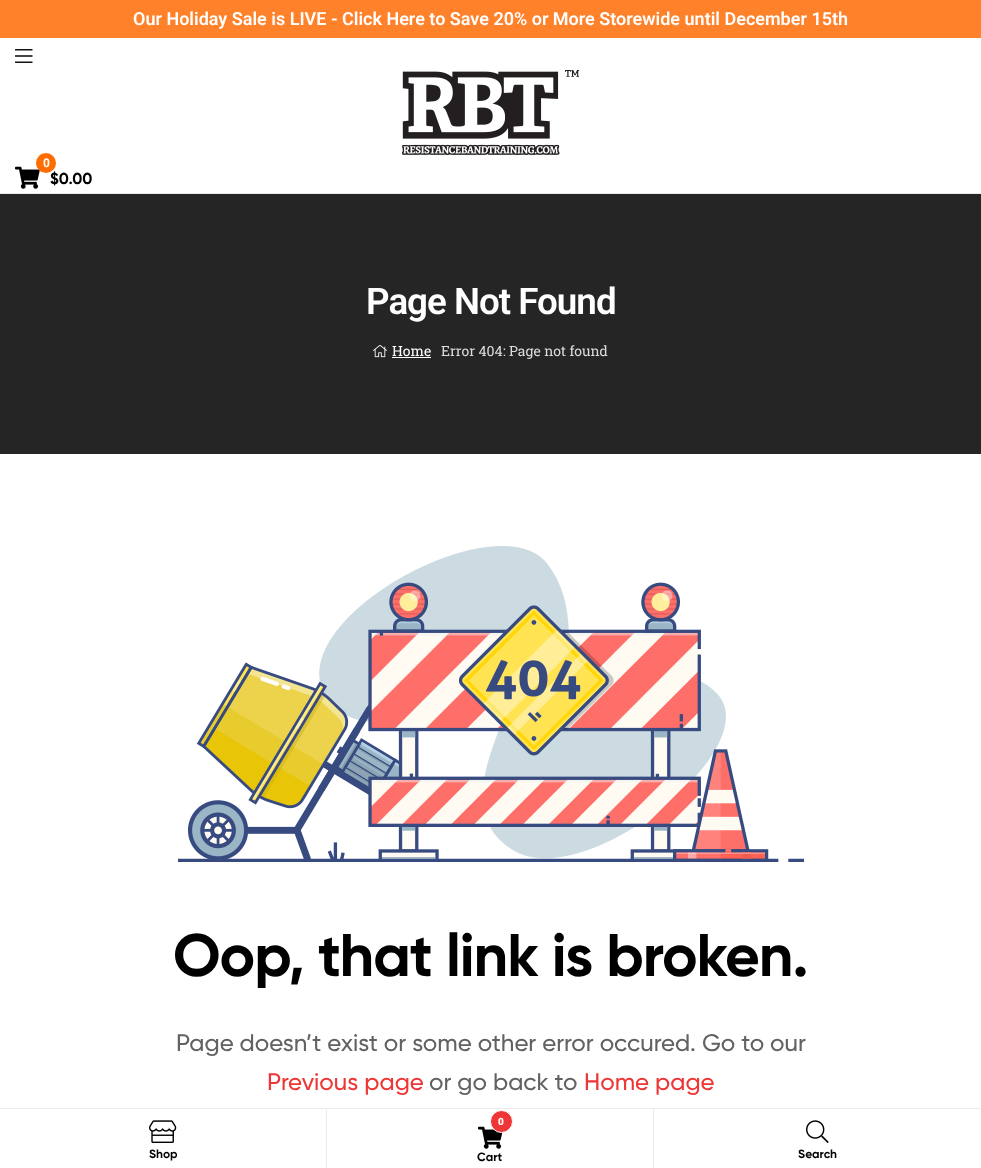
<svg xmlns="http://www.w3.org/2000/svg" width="981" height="1168">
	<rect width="100%" height="100%" fill="#FFFFFF" />
	<rect x="0" y="0" width="981" height="38" fill="#FF812A" />
	<text x="133" y="25" font-family="Roboto" font-size="18" font-weight="600" fill="#FFFFFF">Our Holiday Sale is LIVE - Click Here to Save 20% or More Storewide until December 15th</text>
	<rect x="0" y="193" width="981" height="1" fill="#EBEBEB" />
	<image x="15" y="49" width="18" height="14" href="assets/img1.png" />
	<image x="402" y="70" width="177" height="85" href="assets/img2.png" />
	<image x="15" y="166" width="25" height="23" href="assets/img3.png" />
	<text x="50" y="184" font-family="Gilroy" font-size="16" font-weight="700" fill="#000000">$0.00</text>
	<circle cx="46" cy="163" r="10" fill="#FF6D01" />
	<text x="43" y="167" font-family="Roboto" font-size="12" font-weight="700" fill="#FFFFFF">0</text>
	<rect x="0" y="194" width="981" height="260" fill="#252525" />
	<text x="366" y="314" font-family="Roboto" font-size="36.75" font-weight="600" letter-spacing="-1" fill="#FFFFFF">Page Not Found</text>
	<image x="373" y="345" width="14" height="13" href="assets/img4.png" />
	<text x="392" y="356" font-family="Roboto Slab" font-size="14" fill="#FFFFFF">Home</text>
	<rect x="392" y="357" width="39" height="1" fill="#FFFFFF" />
	<text x="441" y="356" font-family="Roboto Slab" font-size="14" fill="#DDDDDD">Error 404: Page not found</text>
	<image x="178" y="546" width="626" height="316" href="assets/img5.png" />
	<text x="173" y="976" font-family="Gilroy" font-size="60" font-weight="700" letter-spacing="-1" fill="#000000">Oop, that link is broken.</text>
	<text x="176" y="1051" font-family="Gilroy" font-size="24" font-weight="500" fill="#626262">Page doesn’t exist or some other error occured. Go to our</text>
	<text x="267" y="1090" font-family="Gilroy" font-size="24" font-weight="500" fill="#EF3636">Previous page</text>
	<text x="429" y="1090" font-family="Gilroy" font-size="24" font-weight="500" fill="#626262">or go back to</text>
	<text x="584" y="1090" font-family="Gilroy" font-size="24" font-weight="500" fill="#EF3636">Home page</text>
	<rect x="0" y="1108" width="981" height="1" fill="#EBEBEB" />
	<rect x="326" y="1109" width="1" height="59" fill="#EBEBEB" />
	<image x="149" y="1120" width="28" height="23" href="assets/img6.png" />
	<text x="149" y="1158" font-family="Gilroy" font-size="12" font-weight="700" fill="#000000">Shop</text>
	<rect x="653" y="1109" width="1" height="59" fill="#EBEBEB" />
	<image x="478" y="1126" width="25" height="23" href="assets/img3.png" />
	<circle cx="501.5" cy="1121.5" r="11" fill="#EF3636" stroke="#FFFFFF" />
	<text x="498" y="1125" font-family="Roboto" font-size="10" font-weight="900" fill="#FFFFFF">0</text>
	<text x="477" y="1161" font-family="Gilroy" font-size="12" font-weight="700" fill="#000000">Cart</text>
	<image x="806" y="1120" width="23" height="23" href="assets/img7.png" />
	<text x="798" y="1158" font-family="Gilroy" font-size="12" font-weight="700" fill="#000000">Search</text>
</svg>
